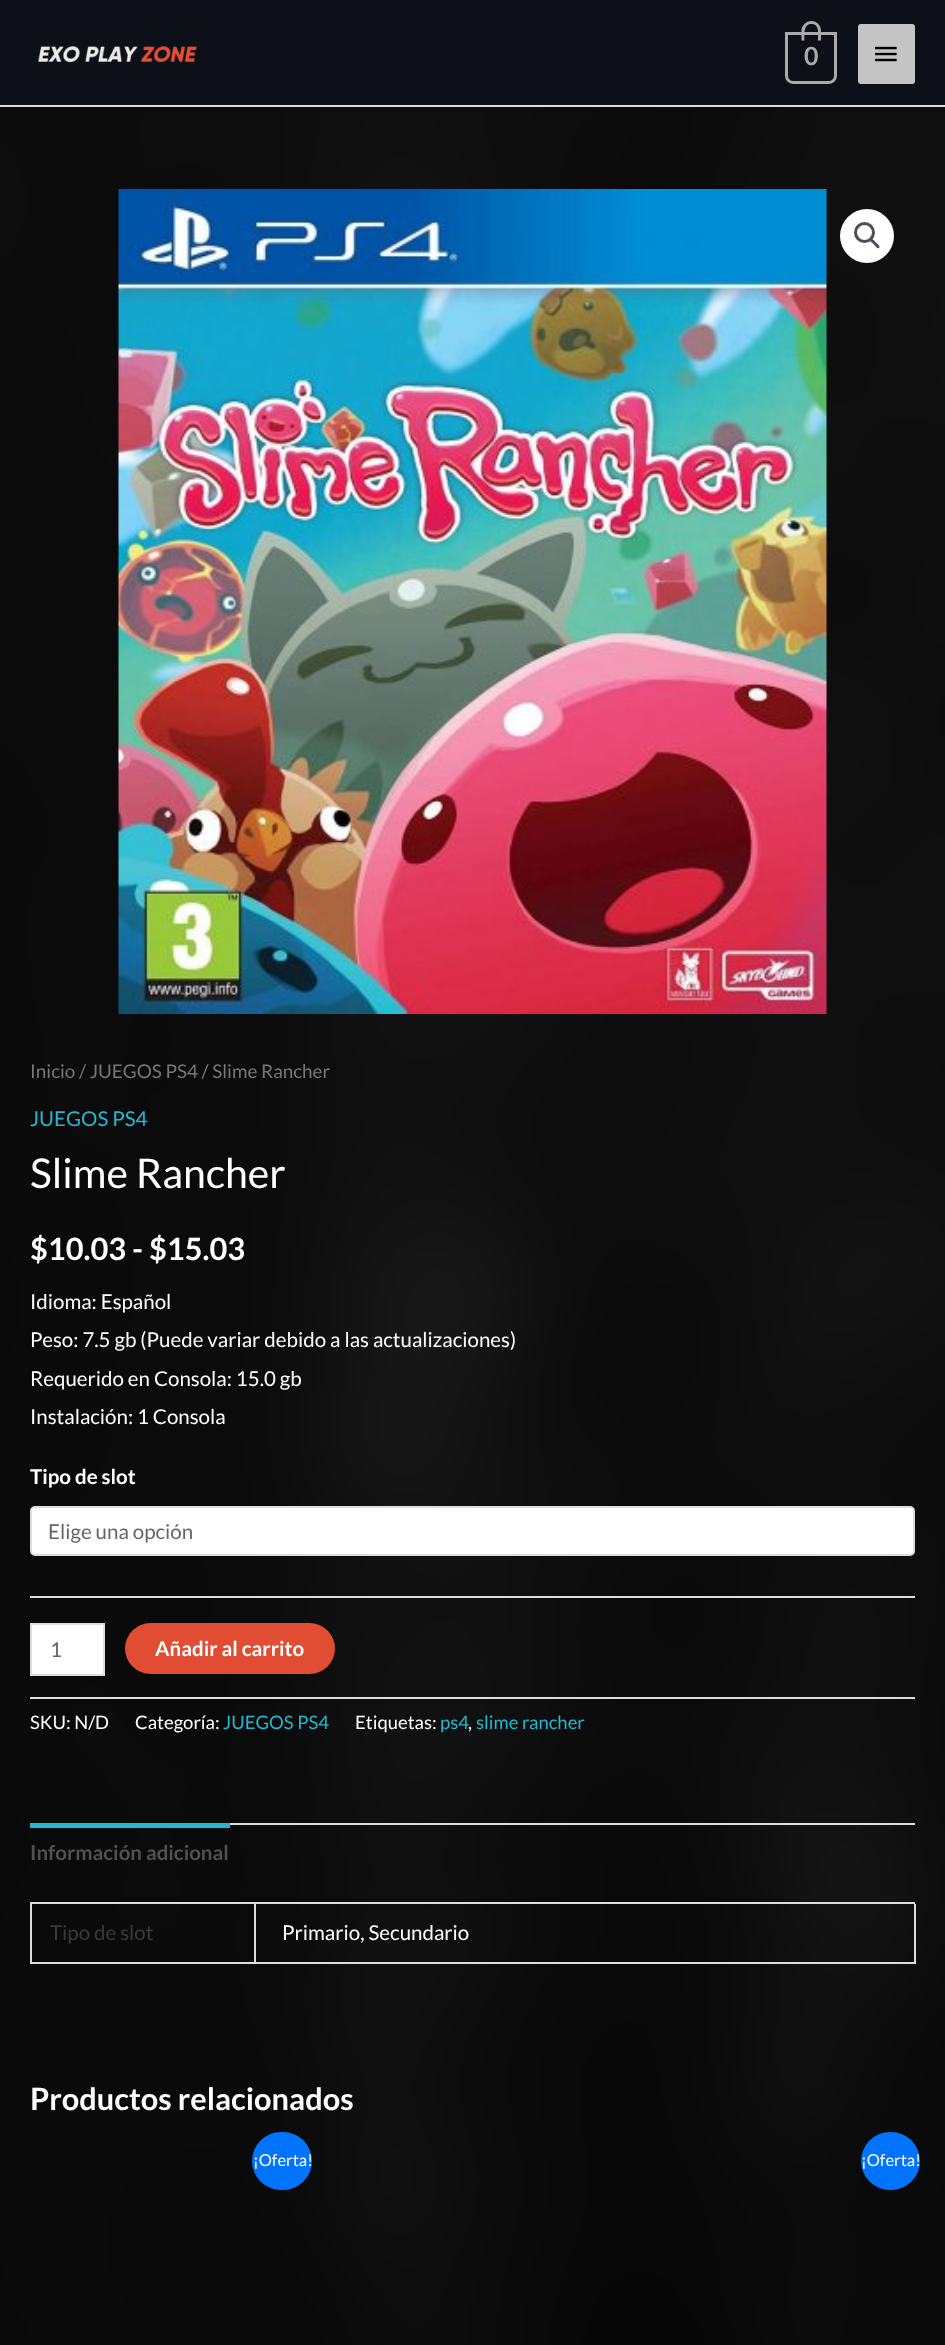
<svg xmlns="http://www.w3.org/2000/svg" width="945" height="2345">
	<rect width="100%" height="100%" fill="#FFFFFF" />
	<image x="0" y="107" width="945" height="2238" href="assets/img1.png" />
	<rect x="0" y="0" width="945" height="105" fill="#0E1019" />
	<rect x="0" y="105" width="945" height="2" fill="#DDDDDD" />
	<image x="38" y="46" width="159" height="17" href="assets/img2.png" />
	<path d="M786.5 33.5H835.5V76C835.5 79.5 832.5 82.5 829 82.5H793C789.5 82.5 786.5 79.5 786.5 76Z" fill="none" stroke="#AAAAAA" stroke-width="3" />
	<path d="M811.5 21C817 21 821 25.5 821 31V40.5H801.5V31C801.5 25.5 806 21 811.5 21ZM811.5 24C820 24 818 35 818 40.5H804.5C804.5 35 803 24 811.5 24Z" fill="#AAAAAA" fill-rule="evenodd" />
	<text x="804" y="65" font-family="Lato" font-size="25" font-weight="700" fill="#AAAAAA">0</text>
	<rect x="858" y="24" width="57" height="60" rx="3" fill="#C4C4C4" />
	<image x="875" y="46" width="22" height="16" href="assets/img3.png" />
	<image x="118" y="189" width="709" height="825" href="assets/img4.png" />
	<circle cx="867" cy="236" r="27" fill="#FFFFFF" />
	<circle cx="864.5" cy="232.5" r="9" fill="none" stroke="#4B4F58" stroke-width="3" />
	<path d="M870.5 239.5C872.5 237.5 875 241.5 876 242.5C877 243.5 881 246 879 248C877.5 249.5 875 245.5 874 244.5C873 243.5 869 241 870.5 239.5Z" fill="#4B4F58" />
	<text x="30" y="1078" font-family="Lato" font-size="18.9" fill="#777777">Inicio / JUEGOS PS4 / Slime Rancher</text>
	<text x="30" y="1126" font-family="Lato" font-size="20.5" fill="#21B9D1">JUEGOS PS4</text>
	<text x="30" y="1188" font-family="Lato" font-size="41" fill="#FFFFFF">Slime Rancher</text>
	<text x="30" y="1260" font-family="Lato" font-size="30.75" font-weight="700" fill="#FFFFFF">$10.03 - $15.03</text>
	<g font-family="Lato" font-size="20.5" fill="#FFFFFF">
		<text x="30" y="1309">Idioma: Español</text>
		<text x="30" y="1347">Peso: 7.5 gb (Puede variar debido a las actualizaciones)</text>
		<text x="30" y="1386">Requerido en Consola: 15.0 gb</text>
		<text x="30" y="1424">Instalación: 1 Consola</text>
	</g>
	<rect x="30" y="1596" width="885" height="2" fill="#DDDDDD" />
	<text x="30" y="1484" font-family="Lato" font-size="20.5" font-weight="700" fill="#FFFFFF">Tipo de slot</text>
	<rect x="31" y="1507" width="883" height="48" rx="4" fill="#FFFFFF" stroke="#DDDDDD" stroke-width="2" />
	<text x="48" y="1539" font-family="Lato" font-size="20.5" fill="#666666">Elige una opción</text>
	<rect x="31" y="1624" width="73" height="51" fill="#FFFFFF" stroke="#DDDDDD" stroke-width="2" />
	<text x="50" y="1657" font-family="Lato" font-size="20.5" fill="#666666">1</text>
	<rect x="125" y="1623" width="210" height="51" rx="25.5" fill="#E04D32" />
	<text x="155" y="1656" font-family="Lato" font-size="20.5" font-weight="700" fill="#FFFFFF">Añadir al carrito</text>
	<rect x="30" y="1697" width="885" height="2" fill="#DDDDDD" />
	<g font-family="Lato" font-size="18.5" fill="#FFFFFF">
		<text x="30" y="1729">SKU: N/D</text>
		<text x="135" y="1729">Categoría:</text>
	</g>
	<text x="223" y="1729" font-family="Lato" font-size="18.5" fill="#21B9D1">JUEGOS PS4</text>
	<text x="355" y="1729" font-family="Lato" font-size="18.5" fill="#FFFFFF">Etiquetas:</text>
	<text x="440" y="1729" font-family="Lato" font-size="18.5" fill="#21B9D1">ps4</text>
	<text x="468" y="1729" font-family="Lato" font-size="18.5" fill="#FFFFFF">,</text>
	<text x="476" y="1729" font-family="Lato" font-size="18.5" fill="#21B9D1">slime rancher</text>
	<rect x="230" y="1823" width="685" height="2" fill="#DDDDDD" />
	<rect x="30" y="1823" width="200" height="5" fill="#21B9D1" />
	<text x="30" y="1860" font-family="Lato" font-size="20.5" font-weight="700" fill="#515151">Información adicional</text>
	<rect x="30" y="1902" width="885" height="2" fill="#DDDDDD" />
	<rect x="254" y="1904" width="2" height="60" fill="#DDDDDD" />
	<rect x="30" y="1962" width="225" height="2" fill="#DDDDDD" />
	<rect x="30" y="1904" width="2" height="60" fill="#DDDDDD" />
	<text x="50" y="1940" font-family="Lato" font-size="20.5" fill="#3A3A3A">Tipo de slot</text>
	<rect x="914" y="1904" width="2" height="60" fill="#DDDDDD" />
	<rect x="255" y="1962" width="660" height="2" fill="#DDDDDD" />
	<text x="282" y="1940" font-family="Lato" font-size="20.5" fill="#FFFFFF">Primario, Secundario</text>
	<text x="30" y="2110" font-family="Lato" font-size="30.75" font-weight="700" fill="#FFFFFF">Productos relacionados</text>
	<rect x="252" y="2132" width="60" height="58" rx="29" fill="#0074FF" />
	<text x="253" y="2166" font-family="Lato" font-size="16.5" fill="#FFFFFF">¡Oferta!</text>
	<rect x="861" y="2132" width="59" height="58" rx="29" fill="#0074FF" />
	<text x="861" y="2166" font-family="Lato" font-size="16.5" fill="#FFFFFF">¡Oferta!</text>
</svg>
